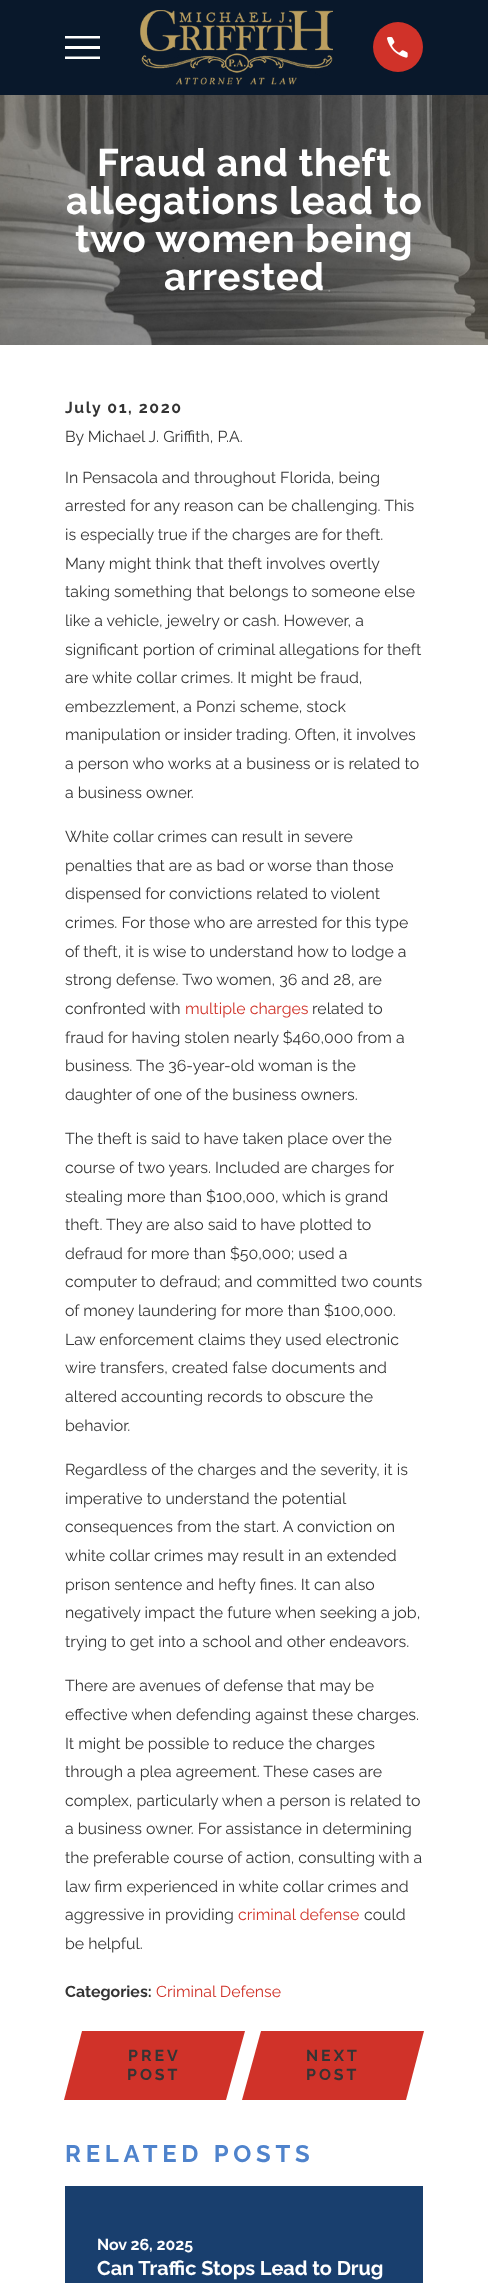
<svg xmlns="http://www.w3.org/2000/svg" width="488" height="2283">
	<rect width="100%" height="100%" fill="#FFFFFF" />
	<rect x="0" y="0" width="488" height="95" fill="#09182B" />
	<path d="M65 36V38.5H100V36ZM65 46V49H100V46ZM65 56.5V59H100V56.5Z" fill="#FFFFFF" />
	<image x="140" y="10" width="193" height="75" href="assets/img1.png" />
	<circle cx="398" cy="47" r="25" fill="#D03229" />
	<image x="387" y="37" width="21" height="21" href="assets/img2.png" />
	<image x="0" y="95" width="488" height="250" href="assets/img3.png" />
	<g font-family="Raleway" font-size="38.25" font-weight="700" letter-spacing="0.75" fill="#FFFFFF">
		<text x="97" y="176">Fraud and theft</text>
		<text x="66" y="214">allegations lead to</text>
		<text x="75" y="252">two women being</text>
		<text x="164" y="290">arrested</text>
	</g>
	<text x="65" y="413" font-family="Raleway" font-size="15.9" font-weight="700" letter-spacing="1.6" fill="#343434">July 01, 2020</text>
	<g font-family="Raleway" font-size="15.9" fill="#343434">
		<text x="65" y="442">By Michael J. Griffith, P.A.</text>
		<text x="65" y="483">In Pensacola and throughout Florida, being</text>
		<text x="65" y="511">arrested for any reason can be challenging. This</text>
		<text x="65" y="540">is especially true if the charges are for theft.</text>
		<text x="65" y="569">Many might think that theft involves overtly</text>
		<text x="65" y="597">taking something that belongs to someone else</text>
		<text x="65" y="626">like a vehicle, jewelry or cash. However, a</text>
		<text x="65" y="655">significant portion of criminal allegations for theft</text>
		<text x="65" y="683">are white collar crimes. It might be fraud,</text>
		<text x="65" y="712">embezzlement, a Ponzi scheme, stock</text>
		<text x="65" y="740">manipulation or insider trading. Often, it involves</text>
		<text x="65" y="769">a person who works at a business or is related to</text>
		<text x="65" y="798">a business owner.</text>
		<text x="65" y="842">White collar crimes can result in severe</text>
		<text x="65" y="871">penalties that are as bad or worse than those</text>
		<text x="65" y="899">dispensed for convictions related to violent</text>
		<text x="65" y="928">crimes. For those who are arrested for this type</text>
		<text x="65" y="957">of theft, it is wise to understand how to lodge a</text>
		<text x="65" y="985">strong defense. Two women, 36 and 28, are</text>
		<text x="65" y="1014">confronted with</text>
	</g>
	<text x="185" y="1014" font-family="Raleway" font-size="15.9" fill="#D03229">multiple charges</text>
	<g font-family="Raleway" font-size="15.9" fill="#343434">
		<text x="312" y="1014">related to</text>
		<text x="65" y="1043">fraud for having stolen nearly $460,000 from a</text>
		<text x="65" y="1071">business. The 36-year-old woman is the</text>
		<text x="65" y="1100">daughter of one of the business owners.</text>
		<text x="65" y="1144">The theft is said to have taken place over the</text>
		<text x="65" y="1173">course of two years. Included are charges for</text>
		<text x="65" y="1202">stealing more than $100,000, which is grand</text>
		<text x="65" y="1230">theft. They are also said to have plotted to</text>
		<text x="65" y="1259">defraud for more than $50,000; used a</text>
		<text x="65" y="1287">computer to defraud; and committed two counts</text>
		<text x="65" y="1316">of money laundering for more than $100,000.</text>
		<text x="65" y="1345">Law enforcement claims they used electronic</text>
		<text x="65" y="1373">wire transfers, created false documents and</text>
		<text x="65" y="1402">altered accounting records to obscure the</text>
		<text x="65" y="1431">behavior.</text>
		<text x="65" y="1475">Regardless of the charges and the severity, it is</text>
		<text x="65" y="1504">imperative to understand the potential</text>
		<text x="65" y="1532">consequences from the start. A conviction on</text>
		<text x="65" y="1561">white collar crimes may result in an extended</text>
		<text x="65" y="1590">prison sentence and hefty fines. It can also</text>
		<text x="65" y="1618">negatively impact the future when seeking a job,</text>
		<text x="65" y="1647">trying to get into a school and other endeavors.</text>
		<text x="65" y="1691">There are avenues of defense that may be</text>
		<text x="65" y="1720">effective when defending against these charges.</text>
		<text x="65" y="1749">It might be possible to reduce the charges</text>
		<text x="65" y="1777">through a plea agreement. These cases are</text>
		<text x="65" y="1806">complex, particularly when a person is related to</text>
		<text x="65" y="1834">a business owner. For assistance in determining</text>
		<text x="65" y="1863">the preferable course of action, consulting with a</text>
		<text x="65" y="1892">law firm experienced in white collar crimes and</text>
		<text x="65" y="1920">aggressive in providing</text>
	</g>
	<text x="238" y="1920" font-family="Raleway" font-size="15.9" fill="#D03229">criminal defense</text>
	<g font-family="Raleway" font-size="15.9" fill="#343434">
		<text x="364" y="1920">could</text>
		<text x="65" y="1949">be helpful.</text>
	</g>
	<text x="65" y="1997" font-family="Raleway" font-size="15.9" font-weight="700" fill="#343434">Categories:</text>
	<text x="156" y="1997" font-family="Raleway" font-size="15.9" fill="#D03229">Criminal Defense</text>
	<path d="M82 2031H245L226 2100H64Z" fill="#D03229" />
	<g font-family="Raleway" font-size="15.9" font-weight="700" letter-spacing="3" fill="#343434">
		<text x="128" y="2061">PREV</text>
		<text x="127" y="2080">POST</text>
	</g>
	<path d="M261 2031H424L406 2100H242Z" fill="#D03229" />
	<g font-family="Raleway" font-size="15.9" font-weight="700" letter-spacing="3" fill="#343434">
		<text x="306" y="2061">NEXT</text>
		<text x="306" y="2080">POST</text>
	</g>
	<text x="65" y="2162" font-family="Raleway" font-size="23.9" font-weight="700" letter-spacing="4.75" fill="#4F83CC">RELATED POSTS</text>
	<rect x="65" y="2186" width="358" height="97" fill="#193F6E" />
	<text x="97" y="2250" font-family="Raleway" font-size="15.9" font-weight="700" fill="#FFFFFF">Nov 26, 2025</text>
	<text x="97" y="2275" font-family="Raleway" font-size="19.9" font-weight="700" fill="#FFFFFF">Can Traffic Stops Lead to Drug</text>
</svg>
